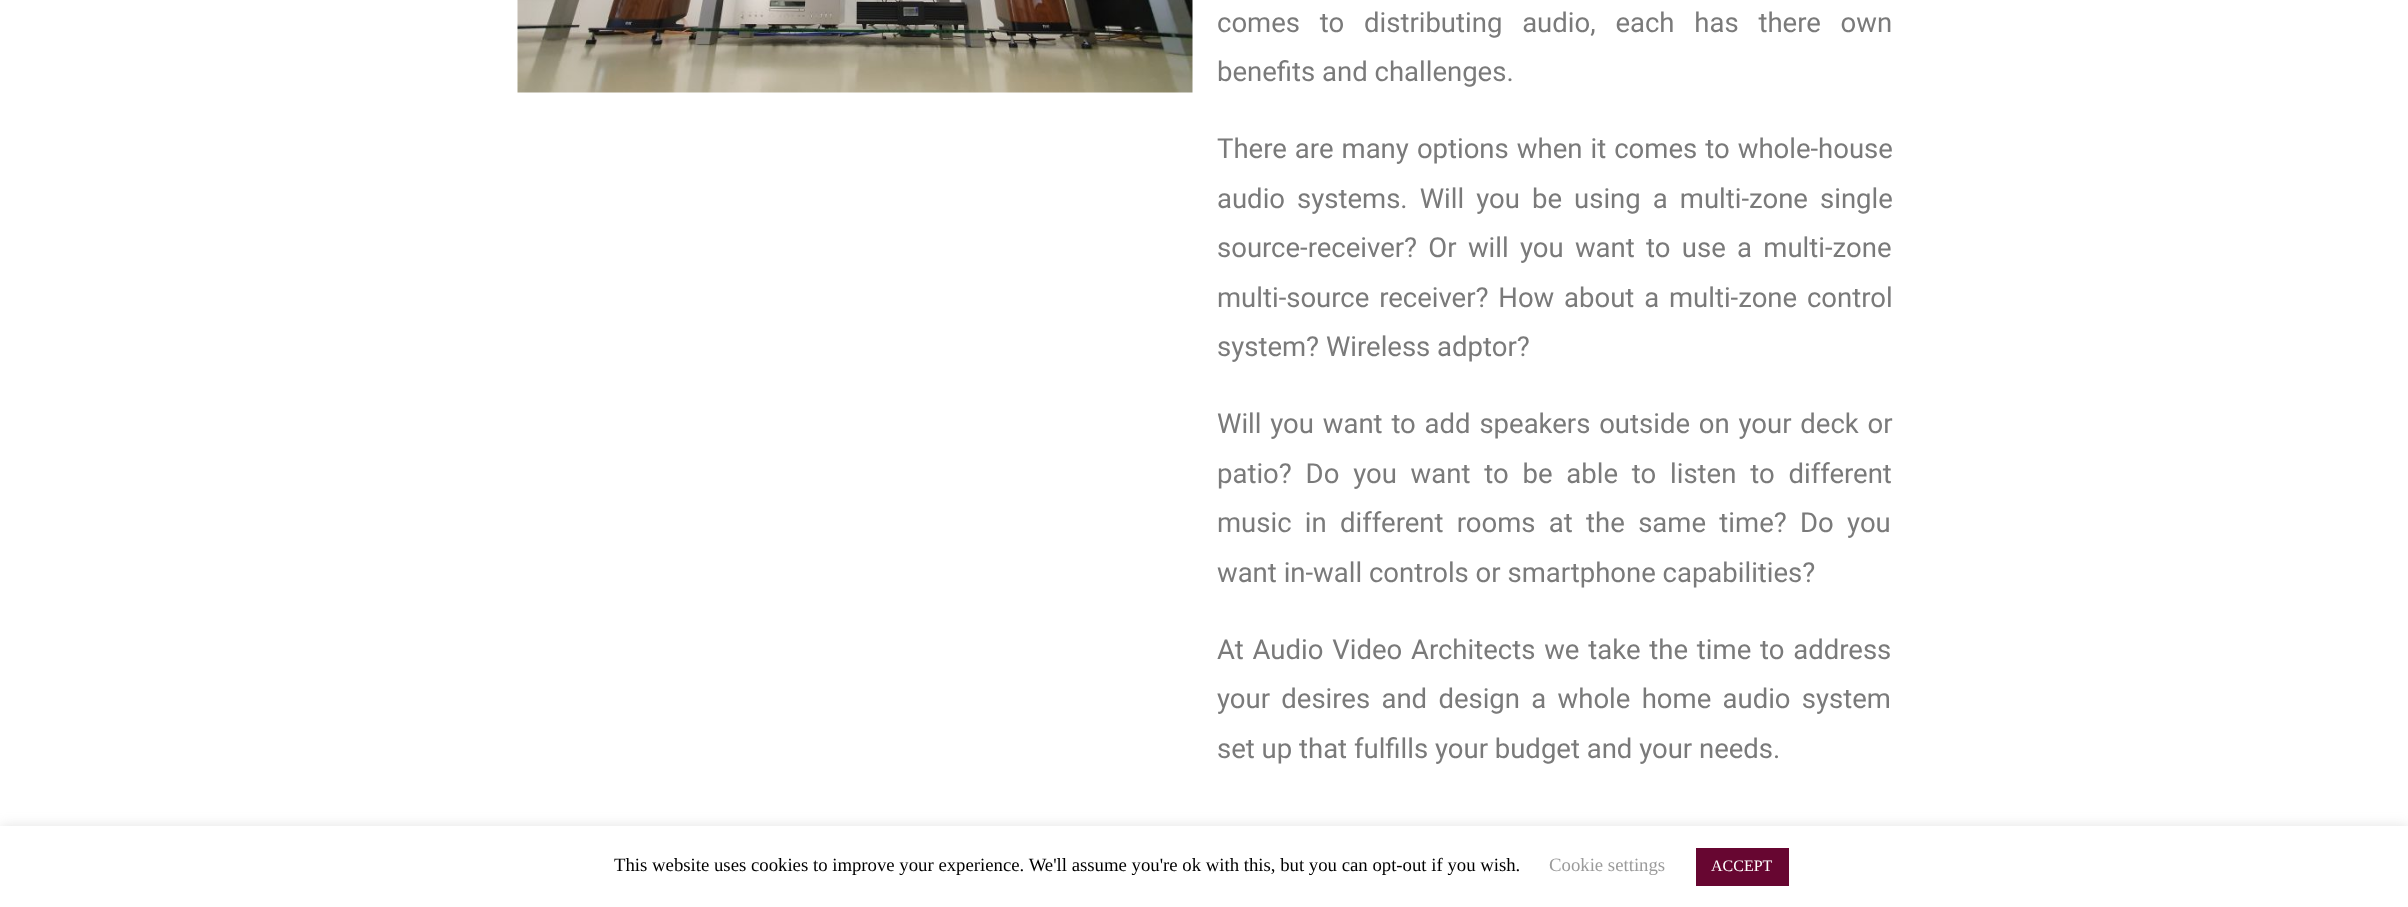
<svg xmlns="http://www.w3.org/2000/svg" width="2408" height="907">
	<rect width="100%" height="100%" fill="#FFFFFF" />
	<image x="517" y="0" width="676" height="93" href="assets/img1.png" />
	<g font-family="Roboto" font-size="27.5" fill="#7A7A7A">
		<text x="1217" y="32" word-spacing="13">comes to distributing audio, each has there own</text>
		<text x="1217" y="81">benefits and challenges.</text>
		<text x="1217" y="158" word-spacing="1.25">There are many options when it comes to whole-house</text>
		<text x="1217" y="208" word-spacing="5.25">audio systems. Will you be using a multi-zone single</text>
		<text x="1217" y="257" word-spacing="4.5">source-receiver? Or will you want to use a multi-zone</text>
		<text x="1217" y="307" word-spacing="3">multi-source receiver? How about a multi-zone control</text>
		<text x="1217" y="356">system? Wireless adptor?</text>
		<text x="1217" y="433" word-spacing="2">Will you want to add speakers outside on your deck or</text>
		<text x="1217" y="483" word-spacing="7">patio? Do you want to be able to listen to different</text>
		<text x="1217" y="532" word-spacing="6.5">music in different rooms at the same time? Do you</text>
		<text x="1217" y="582">want in-wall controls or smartphone capabilities?</text>
		<text x="1217" y="659" word-spacing="2">At Audio Video Architects we take the time to address</text>
		<text x="1217" y="708" word-spacing="4.5">your desires and design a whole home audio system</text>
		<text x="1217" y="758">set up that fulfills your budget and your needs.</text>
	</g>
	<rect x="0" y="825" width="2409" height="81" fill="#ACABAB" fill-opacity="0.3" filter="blur(6px)" />
	<rect x="0" y="826" width="2408" height="81" fill="#FFFFFF" />
	<text x="614" y="871" font-family="Liberation Serif" font-size="18.75" fill="#000000">This website uses cookies to improve your experience. We'll assume you're ok with this, but you can opt-out if you wish.</text>
	<text x="1549" y="871" font-family="Liberation Serif" font-size="18.75" fill="#9B9B9B">Cookie settings</text>
	<rect x="1696" y="848" width="93" height="38" fill="#670631" />
	<text x="1711" y="871" font-family="Liberation Serif" font-size="16" fill="#FFFFFF">ACCEPT</text>
</svg>
